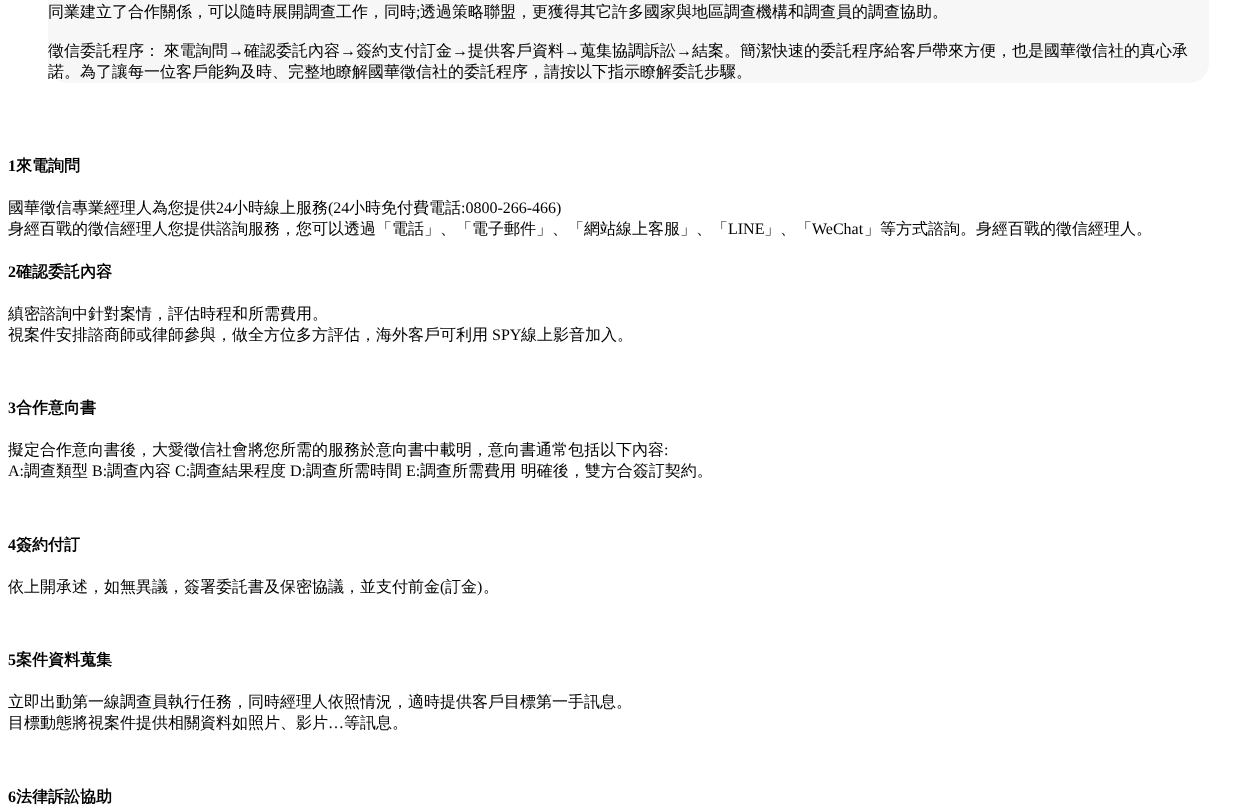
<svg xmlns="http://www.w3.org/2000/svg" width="1257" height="812">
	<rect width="100%" height="100%" fill="#FFFFFF" />
	<rect x="48" y="-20" width="1161" height="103" rx="20" fill="#F7F7F7" />
	<text x="48" y="17" font-family="WenQuanYi Zen Hei" font-size="16" font-weight="500" fill="#000000">同業建立了合作關係，可以隨時展開調查工作，同時</text>
	<text x="416" y="17" font-family="Liberation Serif" font-size="16" fill="#000000">;</text>
	<g font-family="WenQuanYi Zen Hei" font-size="16" font-weight="500" fill="#000000">
		<text x="420" y="17">透過策略聯盟，更獲得其它許多國家與地區調查機構和調查員的調查協助。</text>
		<text x="48" y="56" word-spacing="-1">徵信委託程序： 來電詢問</text>
	</g>
	<text x="228" y="56" font-family="Liberation Serif" font-size="16" fill="#000000">→</text>
	<text x="244" y="56" font-family="WenQuanYi Zen Hei" font-size="16" font-weight="500" fill="#000000">確認委託內容</text>
	<text x="340" y="56" font-family="Liberation Serif" font-size="16" fill="#000000">→</text>
	<text x="356" y="56" font-family="WenQuanYi Zen Hei" font-size="16" font-weight="500" fill="#000000">簽約支付訂金</text>
	<text x="452" y="56" font-family="Liberation Serif" font-size="16" fill="#000000">→</text>
	<text x="468" y="56" font-family="WenQuanYi Zen Hei" font-size="16" font-weight="500" fill="#000000">提供客戶資料</text>
	<text x="564" y="56" font-family="Liberation Serif" font-size="16" fill="#000000">→</text>
	<text x="580" y="56" font-family="WenQuanYi Zen Hei" font-size="16" font-weight="500" fill="#000000">蒐集協調訴訟</text>
	<text x="676" y="56" font-family="Liberation Serif" font-size="16" fill="#000000">→</text>
	<g font-family="WenQuanYi Zen Hei" font-size="16" font-weight="500" fill="#000000">
		<text x="692" y="56">結案。簡潔快速的委託程序給客戶帶來方便，也是國華徵信社的真心承</text>
		<text x="48" y="77">諾。為了讓每一位客戶能夠及時、完整地瞭解國華徵信社的委託程序，請按以下指示瞭解委託步驟。</text>
	</g>
	<text x="8" y="171" font-family="Liberation Serif" font-size="16" font-weight="700" fill="#000000">1</text>
	<text x="16" y="171" font-family="WenQuanYi Zen Hei" font-size="16" font-weight="700" fill="#000000">來電詢問</text>
	<text x="8" y="213" font-family="WenQuanYi Zen Hei" font-size="16" font-weight="500" fill="#000000">國華徵信專業經理人為您提供</text>
	<text x="216" y="213" font-family="Liberation Serif" font-size="16" fill="#000000">24</text>
	<text x="232" y="213" font-family="WenQuanYi Zen Hei" font-size="16" font-weight="500" fill="#000000">小時線上服務</text>
	<text x="328" y="213" font-family="Liberation Serif" font-size="16" fill="#000000">(24</text>
	<text x="349" y="213" font-family="WenQuanYi Zen Hei" font-size="16" font-weight="500" fill="#000000">小時免付費電話</text>
	<text x="461" y="213" font-family="Liberation Serif" font-size="16" fill="#000000">:0800-266-466)</text>
	<text x="8" y="234" font-family="WenQuanYi Zen Hei" font-size="16" font-weight="500" fill="#000000">身經百戰的徵信經理人您提供諮詢服務，您可以透過「電話」、「電子郵件」、「網站線上客服」、「</text>
	<text x="728" y="234" font-family="Liberation Serif" font-size="16" fill="#000000">LINE</text>
	<text x="764" y="234" font-family="WenQuanYi Zen Hei" font-size="16" font-weight="500" fill="#000000">」、「</text>
	<text x="812" y="234" font-family="Liberation Serif" font-size="16" fill="#000000">WeChat</text>
	<text x="864" y="234" font-family="WenQuanYi Zen Hei" font-size="16" font-weight="500" fill="#000000">」等方式諮詢。身經百戰的徵信經理人。</text>
	<text x="8" y="277" font-family="Liberation Serif" font-size="16" font-weight="700" fill="#000000">2</text>
	<text x="16" y="277" font-family="WenQuanYi Zen Hei" font-size="16" font-weight="700" fill="#000000">確認委託內容</text>
	<g font-family="WenQuanYi Zen Hei" font-size="16" font-weight="500" fill="#000000">
		<text x="8" y="319">縝密諮詢中針對案情，評估時程和所需費用。</text>
		<text x="8" y="340">視案件安排諮商師或律師參與，做全方位多方評估，海外客戶可利用</text>
	</g>
	<text x="492" y="340" font-family="Liberation Serif" font-size="16" fill="#000000">SPY</text>
	<text x="521" y="340" font-family="WenQuanYi Zen Hei" font-size="16" font-weight="500" fill="#000000">線上影音加入。</text>
	<text x="8" y="413" font-family="Liberation Serif" font-size="16" font-weight="700" fill="#000000">3</text>
	<text x="16" y="413" font-family="WenQuanYi Zen Hei" font-size="16" font-weight="700" fill="#000000">合作意向書</text>
	<text x="8" y="455" font-family="WenQuanYi Zen Hei" font-size="16" font-weight="500" fill="#000000">擬定合作意向書後，大愛徵信社會將您所需的服務於意向書中載明，意向書通常包括以下內容</text>
	<g font-family="Liberation Serif" font-size="16" fill="#000000">
		<text x="664" y="455">:</text>
		<text x="8" y="476">A:</text>
	</g>
	<text x="24" y="476" font-family="WenQuanYi Zen Hei" font-size="16" font-weight="500" fill="#000000">調查類型</text>
	<text x="92" y="476" font-family="Liberation Serif" font-size="16" fill="#000000">B:</text>
	<text x="107" y="476" font-family="WenQuanYi Zen Hei" font-size="16" font-weight="500" fill="#000000">調查內容</text>
	<text x="175" y="476" font-family="Liberation Serif" font-size="16" fill="#000000">C:</text>
	<text x="190" y="476" font-family="WenQuanYi Zen Hei" font-size="16" font-weight="500" fill="#000000">調查結果程度</text>
	<text x="290" y="476" font-family="Liberation Serif" font-size="16" fill="#000000">D:</text>
	<text x="306" y="476" font-family="WenQuanYi Zen Hei" font-size="16" font-weight="500" fill="#000000">調查所需時間</text>
	<text x="406" y="476" font-family="Liberation Serif" font-size="16" fill="#000000">E:</text>
	<text x="420" y="476" font-family="WenQuanYi Zen Hei" font-size="16" font-weight="500" fill="#000000">調查所需費用 明確後，雙方合簽訂契約。</text>
	<text x="8" y="550" font-family="Liberation Serif" font-size="16" font-weight="700" fill="#000000">4</text>
	<text x="16" y="550" font-family="WenQuanYi Zen Hei" font-size="16" font-weight="700" fill="#000000">簽約付訂</text>
	<text x="8" y="592" font-family="WenQuanYi Zen Hei" font-size="16" font-weight="500" fill="#000000">依上開承述，如無異議，簽署委託書及保密協議，並支付前金</text>
	<text x="440" y="592" font-family="Liberation Serif" font-size="16" fill="#000000">(</text>
	<text x="445" y="592" font-family="WenQuanYi Zen Hei" font-size="16" font-weight="500" fill="#000000">訂金</text>
	<text x="477" y="592" font-family="Liberation Serif" font-size="16" fill="#000000">)</text>
	<text x="483" y="592" font-family="WenQuanYi Zen Hei" font-size="16" font-weight="500" fill="#000000">。</text>
	<text x="8" y="665" font-family="Liberation Serif" font-size="16" font-weight="700" fill="#000000">5</text>
	<text x="16" y="665" font-family="WenQuanYi Zen Hei" font-size="16" font-weight="700" fill="#000000">案件資料蒐集</text>
	<g font-family="WenQuanYi Zen Hei" font-size="16" font-weight="500" fill="#000000">
		<text x="8" y="707">立即出動第一線調查員執行任務，同時經理人依照情況，適時提供客戶目標第一手訊息。</text>
		<text x="8" y="728">目標動態將視案件提供相關資料如照片、影片</text>
	</g>
	<text x="328" y="728" font-family="Liberation Serif" font-size="16" fill="#000000">…</text>
	<text x="344" y="728" font-family="WenQuanYi Zen Hei" font-size="16" font-weight="500" fill="#000000">等訊息。</text>
	<text x="8" y="802" font-family="Liberation Serif" font-size="16" font-weight="700" fill="#000000">6</text>
	<text x="16" y="802" font-family="WenQuanYi Zen Hei" font-size="16" font-weight="700" fill="#000000">法律訴訟協助</text>
</svg>
